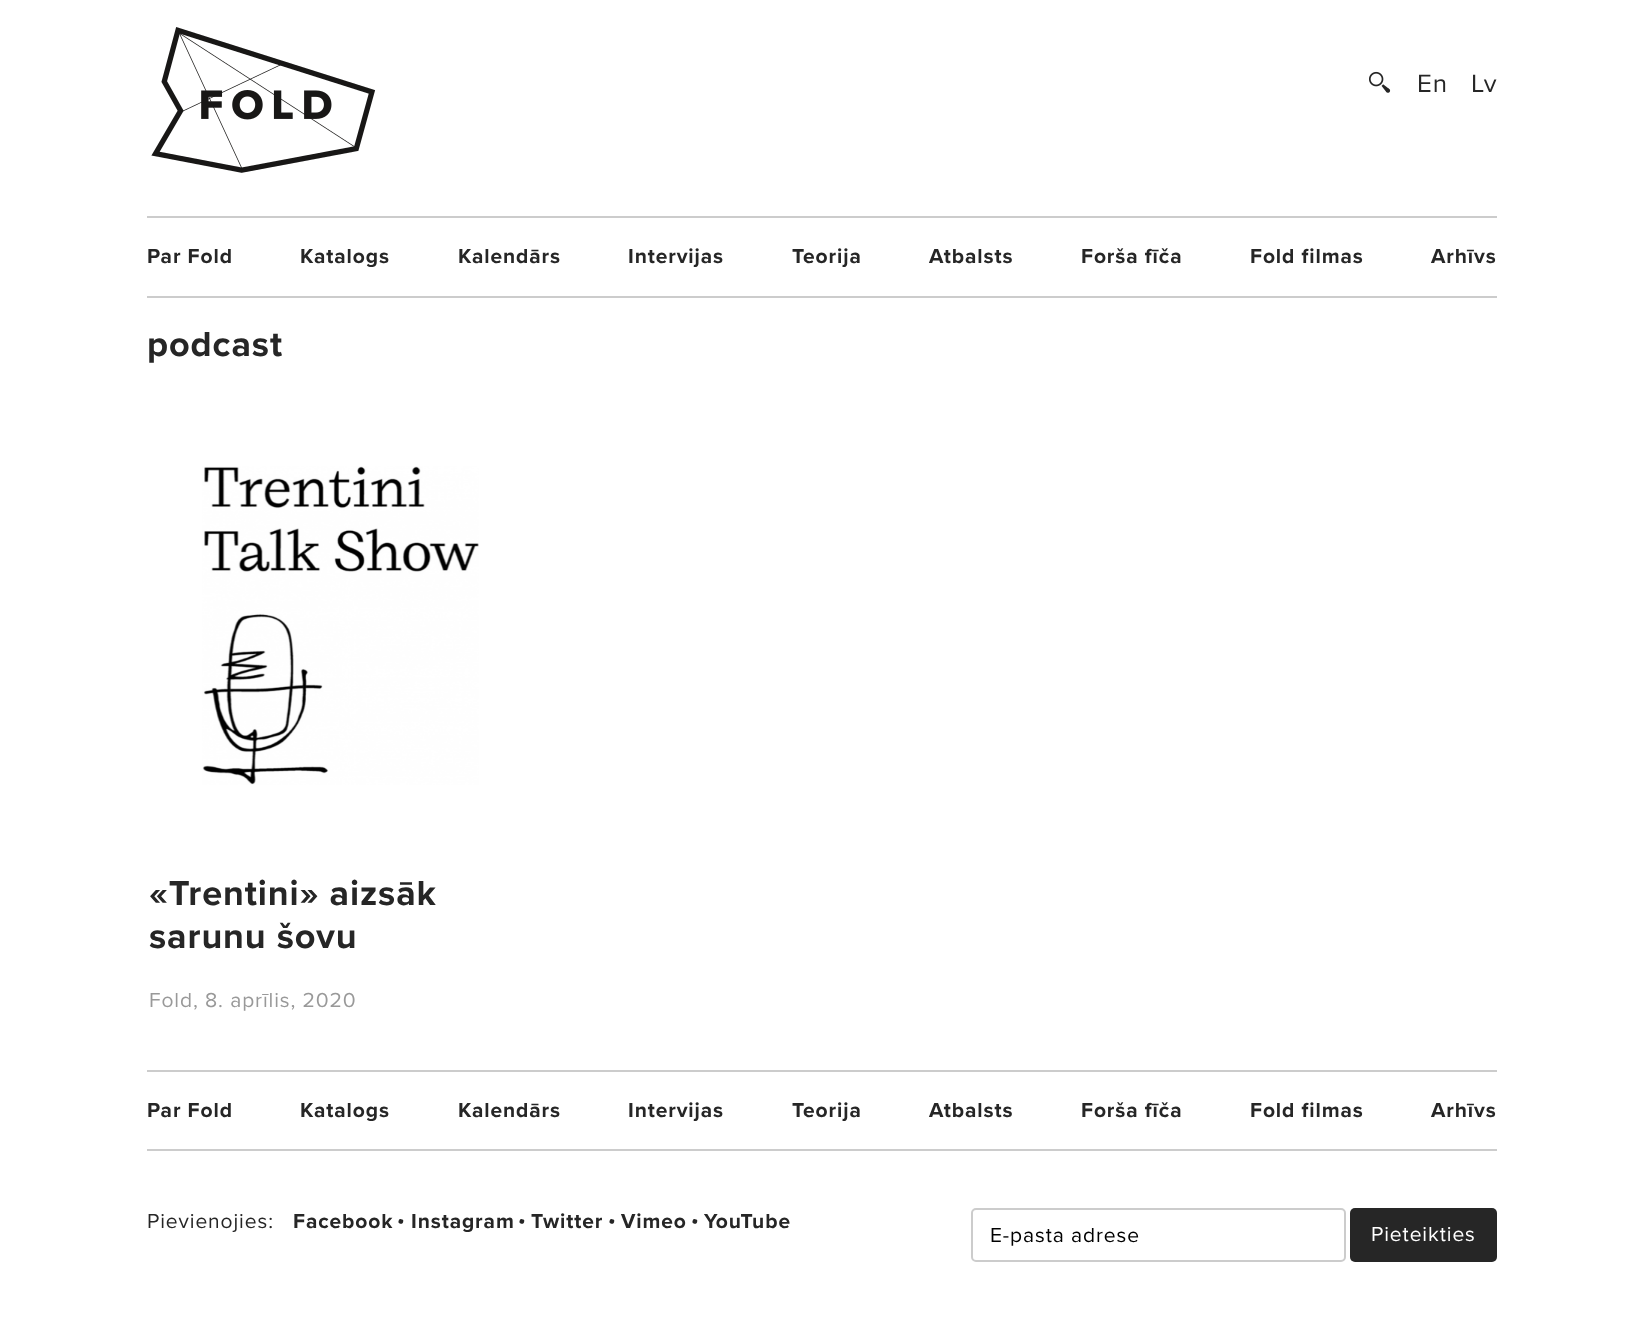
<svg xmlns="http://www.w3.org/2000/svg" width="1644" height="1333">
	<rect width="100%" height="100%" fill="#FFFFFF" />
	<image x="151" y="27" width="225" height="146" href="assets/img1.png" />
	<image x="201" y="90" width="131" height="30" href="assets/img2.png" />
	<image x="1369" y="71" width="22" height="22" href="assets/img3.png" />
	<g font-family="Proxima Nova" font-size="26" letter-spacing="0.9" fill="#262626">
		<text x="1417" y="92">En</text>
		<text x="1471" y="92">Lv</text>
	</g>
	<rect x="147" y="216" width="1350" height="2" fill="#CCCCCC" />
	<rect x="147" y="296" width="1350" height="2" fill="#CCCCCC" />
	<g font-family="Proxima Nova" font-size="21" font-weight="700" letter-spacing="0.9" fill="#262626">
		<text x="147" y="263">Par Fold</text>
		<text x="300" y="263">Katalogs</text>
		<text x="458" y="263">Kalendārs</text>
		<text x="628" y="263">Intervijas</text>
		<text x="792" y="263">Teorija</text>
		<text x="929" y="263">Atbalsts</text>
		<text x="1081" y="263">Forša fīča</text>
		<text x="1250" y="263">Fold filmas</text>
		<text x="1431" y="263">Arhīvs</text>
	</g>
	<text x="147" y="356" font-family="Proxima Nova" font-size="36" font-weight="700" letter-spacing="0.9" fill="#262626">podcast</text>
	<image x="202" y="466" width="277" height="319" href="assets/img4.png" />
	<g font-family="Proxima Nova" font-size="36" font-weight="700" letter-spacing="0.9" fill="#262626">
		<text x="149" y="905">«Trentini» aizsāk</text>
		<text x="149" y="948">sarunu šovu</text>
	</g>
	<text x="149" y="1007" font-family="Proxima Nova" font-size="21" letter-spacing="0.9" fill="#999999">Fold, 8. aprīlis, 2020</text>
	<rect x="147" y="1070" width="1350" height="2" fill="#CCCCCC" />
	<rect x="147" y="1149" width="1350" height="2" fill="#CCCCCC" />
	<g font-family="Proxima Nova" font-size="21" font-weight="700" letter-spacing="0.9" fill="#262626">
		<text x="147" y="1117">Par Fold</text>
		<text x="300" y="1117">Katalogs</text>
		<text x="458" y="1117">Kalendārs</text>
		<text x="628" y="1117">Intervijas</text>
		<text x="792" y="1117">Teorija</text>
		<text x="929" y="1117">Atbalsts</text>
		<text x="1081" y="1117">Forša fīča</text>
		<text x="1250" y="1117">Fold filmas</text>
		<text x="1431" y="1117">Arhīvs</text>
	</g>
	<text x="147" y="1228" font-family="Proxima Nova" font-size="21" letter-spacing="0.9" fill="#262626">Pievienojies:</text>
	<text x="293" y="1228" font-family="Proxima Nova" font-size="21" font-weight="700" letter-spacing="0.9" fill="#262626">Facebook</text>
	<text x="397" y="1228" font-family="Noticia Text" font-size="21" fill="#262626">•</text>
	<text x="411" y="1228" font-family="Proxima Nova" font-size="21" font-weight="700" letter-spacing="0.9" fill="#262626">Instagram</text>
	<text x="518" y="1228" font-family="Noticia Text" font-size="21" fill="#262626">•</text>
	<text x="531" y="1228" font-family="Proxima Nova" font-size="21" font-weight="700" letter-spacing="0.9" fill="#262626">Twitter</text>
	<text x="608" y="1228" font-family="Noticia Text" font-size="21" fill="#262626">•</text>
	<text x="621" y="1228" font-family="Proxima Nova" font-size="21" font-weight="700" letter-spacing="0.9" fill="#262626">Vimeo</text>
	<text x="691" y="1228" font-family="Noticia Text" font-size="21" fill="#262626">•</text>
	<text x="704" y="1228" font-family="Proxima Nova" font-size="21" font-weight="700" letter-spacing="0.9" fill="#262626">YouTube</text>
	<rect x="972" y="1209" width="373" height="52" rx="4" fill="none" stroke="#CCCCCC" stroke-width="2" />
	<text x="990" y="1242" font-family="Proxima Nova" font-size="21" letter-spacing="0.9" fill="#000000">E-pasta adrese</text>
	<rect x="1350" y="1208" width="147" height="54" rx="5" fill="#262626" />
	<text x="1371" y="1241" font-family="Proxima Nova" font-size="21" letter-spacing="0.9" fill="#FFFFFF">Pieteikties</text>
</svg>
